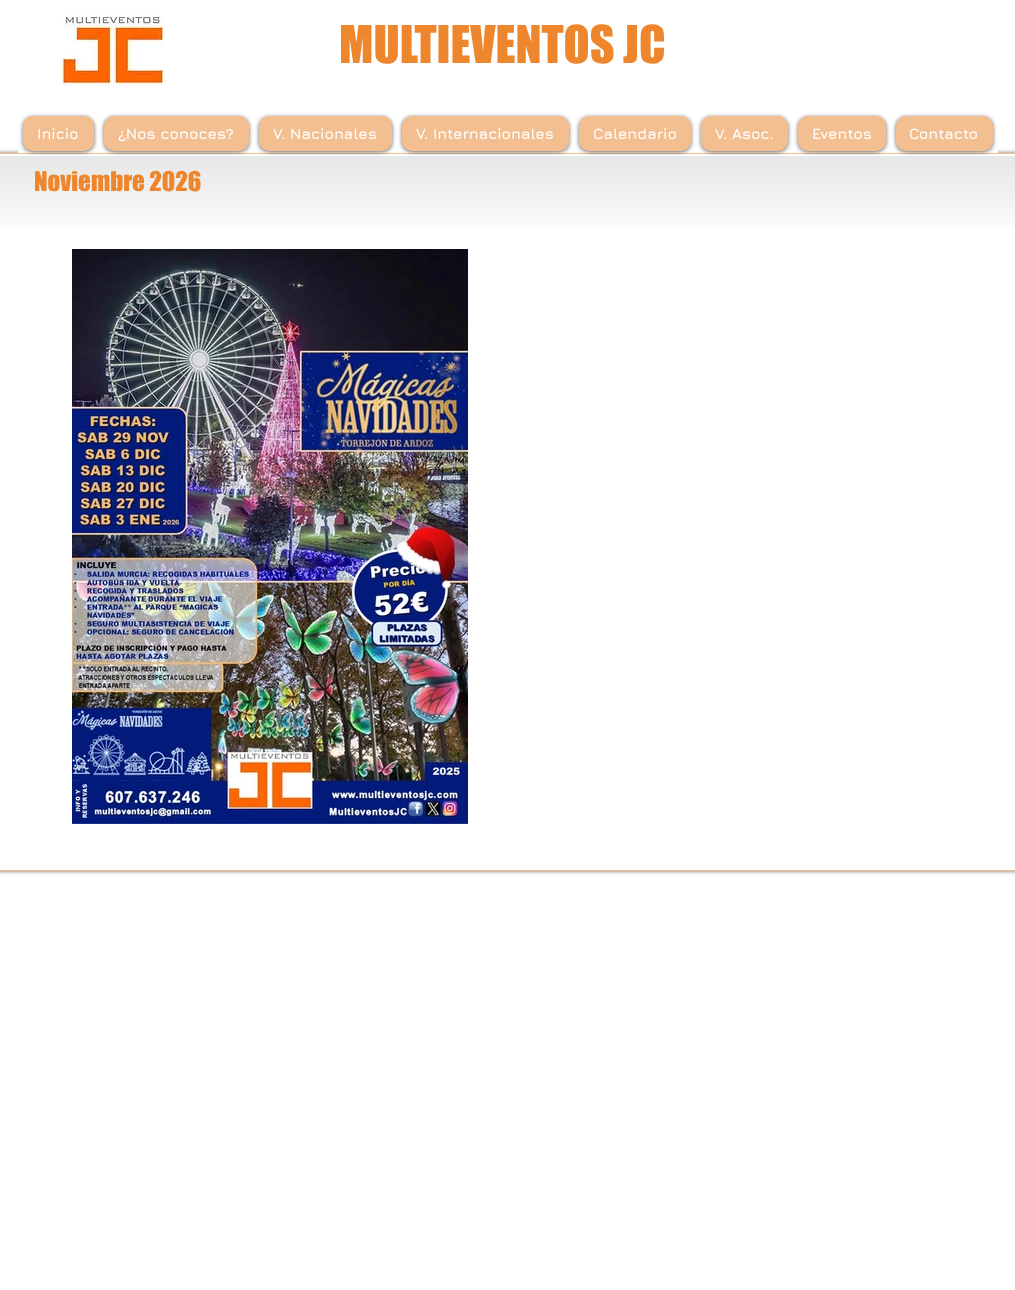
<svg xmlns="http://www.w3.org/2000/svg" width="1015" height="1290">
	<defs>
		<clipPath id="clip1"><path d="M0 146H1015V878H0ZM-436 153H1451C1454 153 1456 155 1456 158V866C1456 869 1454 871 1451 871H-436C-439 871-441 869-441 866V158C-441 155-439 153-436 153Z" clip-rule="evenodd" /></clipPath>
	</defs>
	<rect width="100%" height="100%" fill="#FFFFFF" />
	<image x="59" y="13" width="105" height="73" href="assets/img1.png" />
	<text x="339" y="63" font-family="'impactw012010'" font-size="48" fill="#ED862D">MULTIEVENTOS JC</text>
	<g clip-path="url(#clip1)">
		<rect x="-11" y="153" width="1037" height="718" rx="5" fill="#000000" fill-opacity="0.6" filter="blur(2px)" />
	</g>
	<rect x="18" y="149" width="980" height="4" fill="#FFFFFF" />
	<image x="0" y="156" width="1015" height="69" href="assets/img2.png" />
	<rect x="-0.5" y="153.5" width="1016" height="717" fill="none" stroke="#F3BE90" />
	<rect x="23" y="117" width="71" height="35" rx="10" fill="#000000" fill-opacity="0.6" filter="blur(2px)" />
	<rect x="23" y="116" width="71" height="35" rx="10" fill="#F3BE90" />
	<text x="37" y="139" font-family="Jura" font-size="15" font-weight="700" fill="#FFFFFF">Inicio</text>
	<rect x="104" y="117" width="145" height="35" rx="10" fill="#000000" fill-opacity="0.6" filter="blur(2px)" />
	<rect x="104" y="116" width="145" height="35" rx="10" fill="#F3BE90" />
	<text x="118" y="139" font-family="Jura" font-size="15" font-weight="700" fill="#FFFFFF">¿Nos conoces?</text>
	<rect x="259" y="117" width="133" height="35" rx="10" fill="#000000" fill-opacity="0.6" filter="blur(2px)" />
	<rect x="259" y="116" width="133" height="35" rx="10" fill="#F3BE90" />
	<text x="273" y="139" font-family="Jura" font-size="15" font-weight="700" fill="#FFFFFF">V. Nacionales</text>
	<rect x="402" y="117" width="167" height="35" rx="10" fill="#000000" fill-opacity="0.6" filter="blur(2px)" />
	<rect x="402" y="116" width="167" height="35" rx="10" fill="#F3BE90" />
	<text x="416" y="139" font-family="Jura" font-size="15" font-weight="700" fill="#FFFFFF">V. Internacionales</text>
	<rect x="579" y="117" width="112" height="35" rx="10" fill="#000000" fill-opacity="0.6" filter="blur(2px)" />
	<rect x="579" y="116" width="112" height="35" rx="10" fill="#F3BE90" />
	<text x="593" y="139" font-family="Jura" font-size="15" font-weight="700" fill="#FFFFFF">Calendario</text>
	<rect x="701" y="117" width="87" height="35" rx="10" fill="#000000" fill-opacity="0.6" filter="blur(2px)" />
	<rect x="701" y="116" width="87" height="35" rx="10" fill="#F3BE90" />
	<text x="715" y="139" font-family="Jura" font-size="15" font-weight="700" fill="#FFFFFF">V. Asoc.</text>
	<rect x="798" y="117" width="88" height="35" rx="10" fill="#000000" fill-opacity="0.6" filter="blur(2px)" />
	<rect x="798" y="116" width="88" height="35" rx="10" fill="#F3BE90" />
	<text x="812" y="139" font-family="Jura" font-size="15" font-weight="700" fill="#FFFFFF">Eventos</text>
	<rect x="896" y="117" width="97" height="35" rx="10" fill="#000000" fill-opacity="0.6" filter="blur(2px)" />
	<rect x="896" y="116" width="97" height="35" rx="10" fill="#F3BE90" />
	<text x="909" y="139" font-family="Jura" font-size="15" font-weight="700" fill="#FFFFFF">Contacto</text>
	<text x="34" y="191" font-family="'impactw012010'" font-size="25" fill="#ED862D">Noviembre 2026</text>
	<image x="72" y="249" width="396" height="575" href="assets/img3.png" />
</svg>
